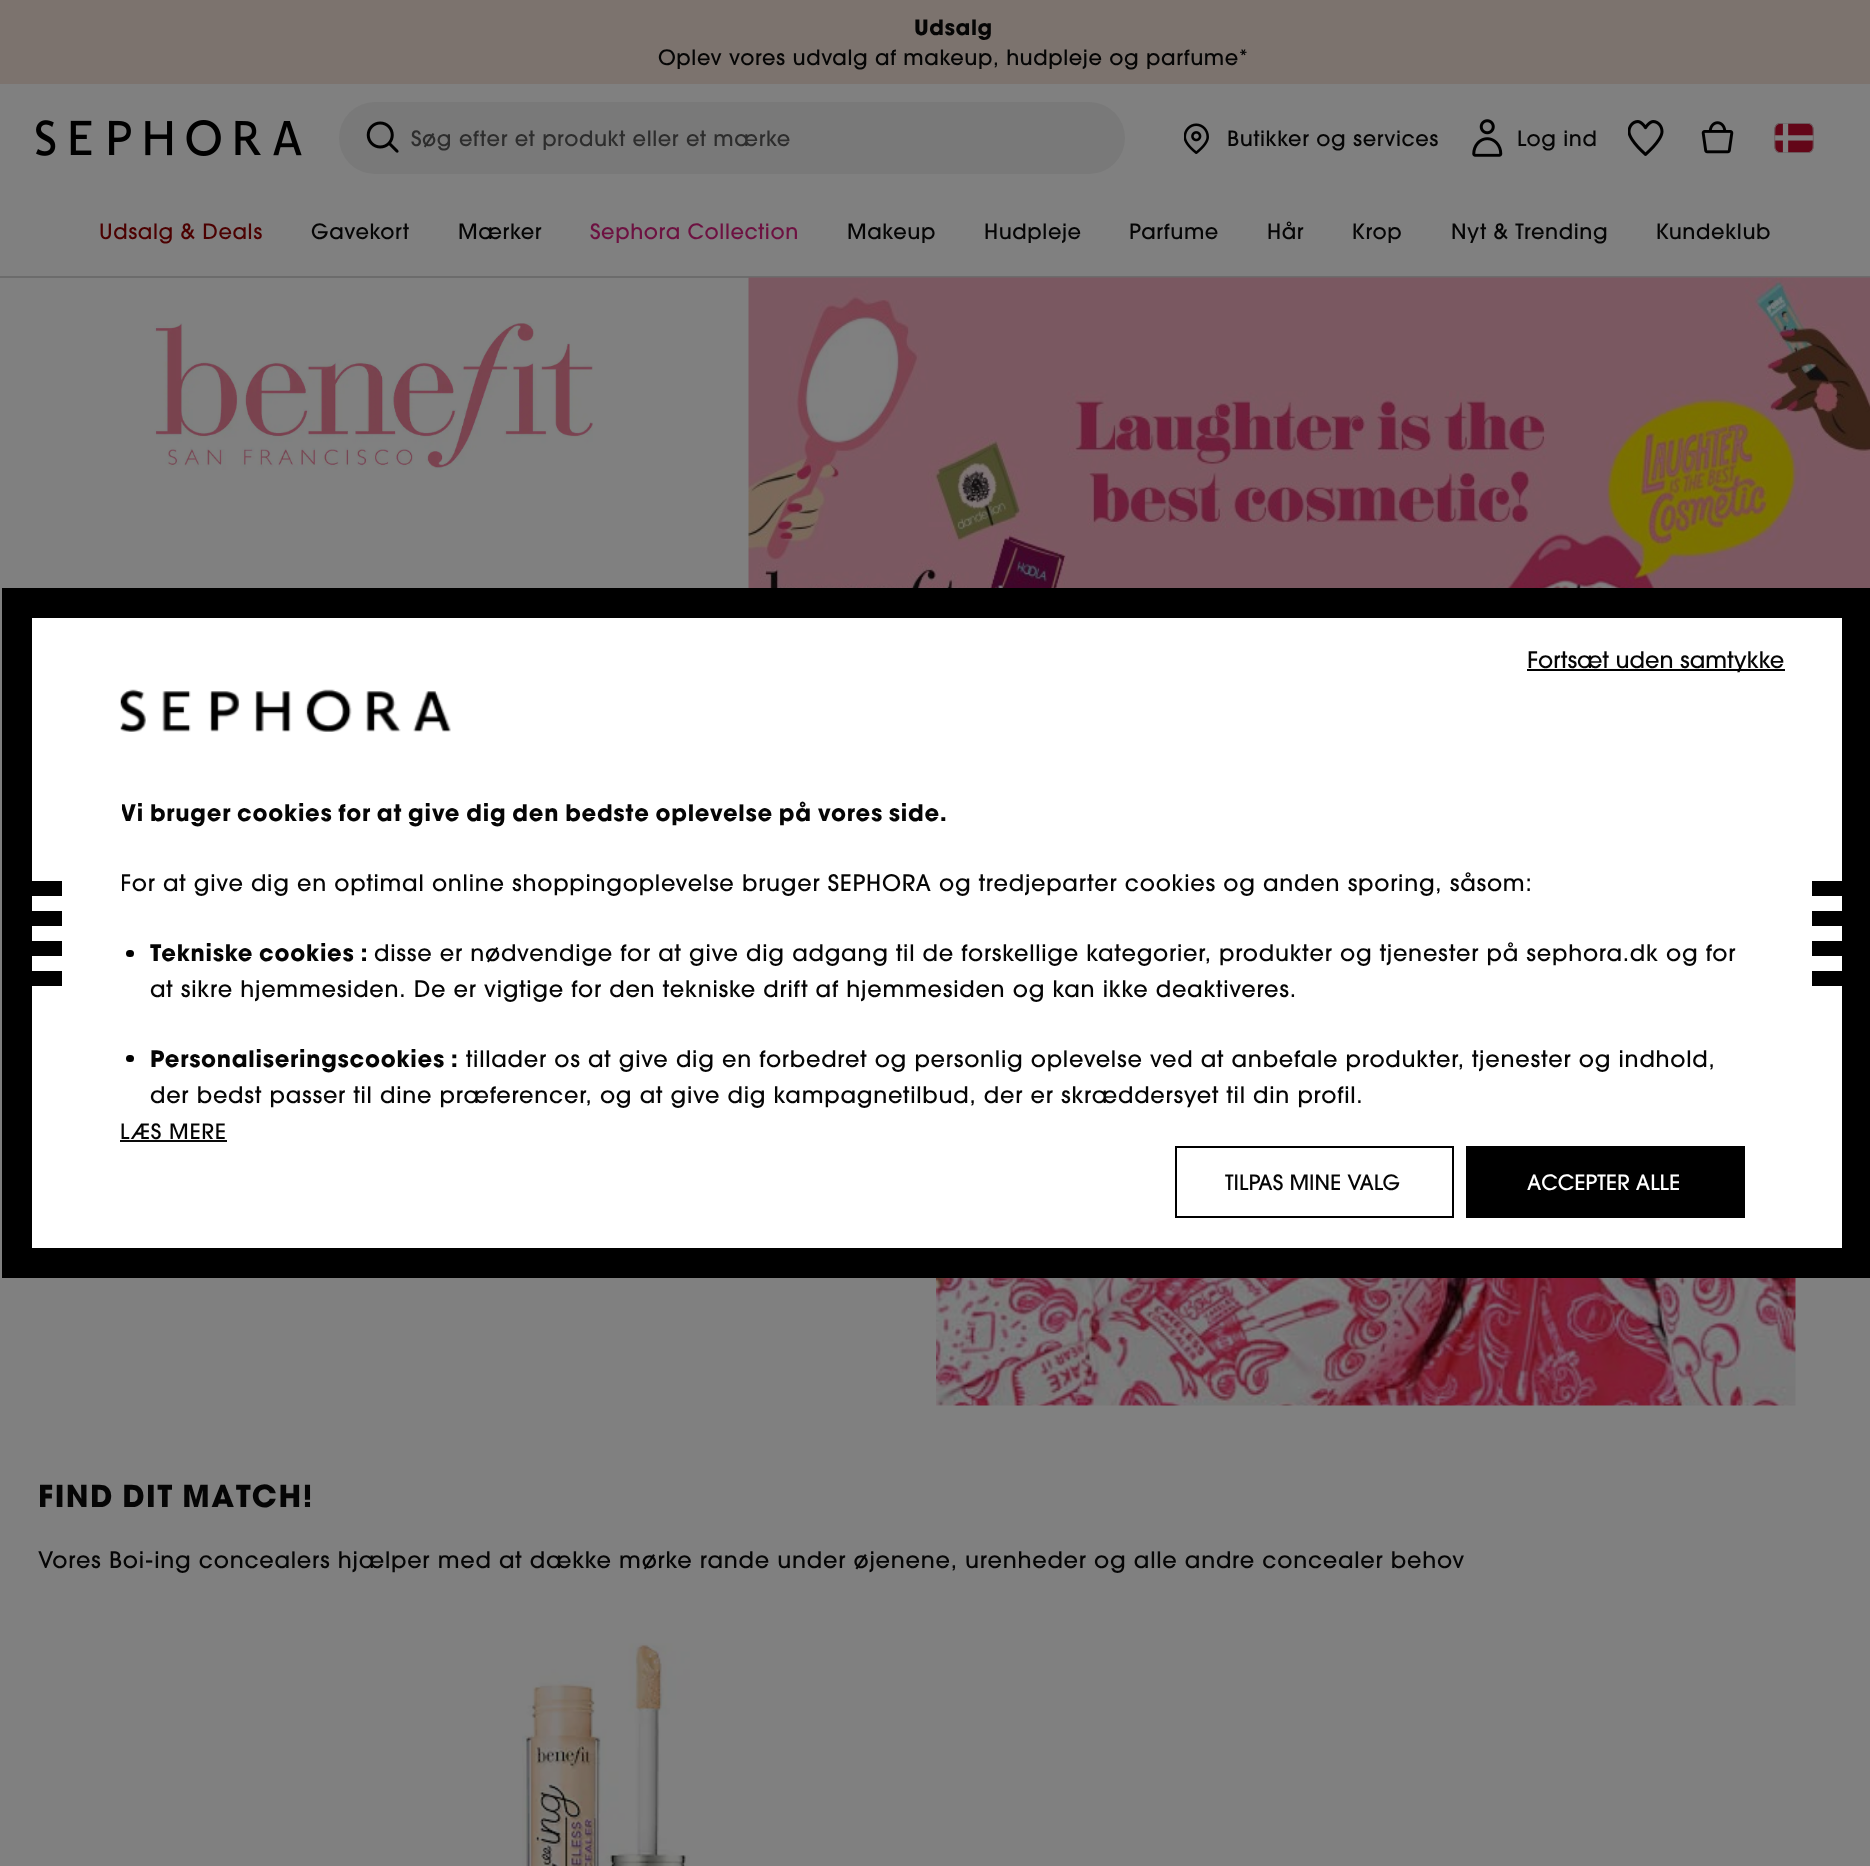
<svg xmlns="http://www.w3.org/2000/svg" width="1870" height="1866">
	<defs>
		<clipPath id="clip1"><rect x="122" y="659" width="1630" height="450" /></clipPath>
	</defs>
	<rect width="100%" height="100%" fill="#808080" />
	<rect x="0" y="276" width="1870" height="2" fill="#6C6C6C" />
	<rect x="0" y="0" width="1870" height="84" fill="#7C736E" />
	<text x="914" y="35" font-family="'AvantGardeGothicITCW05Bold'" font-size="21" font-weight="700" letter-spacing="0.6" fill="#050505">Udsalg</text>
	<text x="658" y="65" font-family="'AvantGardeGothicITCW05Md'" font-size="21" font-weight="500" letter-spacing="0.6" fill="#050505">Oplev vores udvalg af makeup, hudpleje og parfume*</text>
	<image x="36" y="120" width="266" height="36" href="assets/img1.png" />
	<rect x="339" y="102" width="786" height="72" rx="36" fill="#797979" />
	<image x="366" y="121" width="33" height="32" href="assets/img2.png" />
	<text x="411" y="146" font-family="'AvantGardeGothicITCW05Md'" font-size="21" font-weight="500" letter-spacing="0.6" fill="#2D2D2D">Søg efter et produkt eller et mærke</text>
	<image x="1184" y="123" width="25" height="31" href="assets/img3.png" />
	<text x="1227" y="146" font-family="'AvantGardeGothicITCW05Md'" font-size="21" font-weight="500" letter-spacing="0.6" fill="#050505">Butikker og services</text>
	<image x="1472" y="119" width="31" height="38" href="assets/img4.png" />
	<text x="1517" y="146" font-family="'AvantGardeGothicITCW05Md'" font-size="21" font-weight="500" letter-spacing="0.6" fill="#050505">Log ind</text>
	<image x="1628" y="120" width="36" height="36" href="assets/img5.png" />
	<image x="1701" y="121" width="33" height="33" href="assets/img6.png" />
	<image x="1774" y="123" width="40" height="30" href="assets/img7.png" />
	<text x="99" y="239" font-family="'AvantGardeGothicITCW05Md'" font-size="21" font-weight="500" letter-spacing="0.6" fill="#4C0000">Udsalg &amp; Deals</text>
	<g font-family="'AvantGardeGothicITCW05Md'" font-size="21" font-weight="500" letter-spacing="0.6" fill="#050505">
		<text x="311" y="239">Gavekort</text>
		<text x="458" y="239">Mærker</text>
	</g>
	<text x="590" y="239" font-family="'AvantGardeGothicITCW05Md'" font-size="21" font-weight="500" letter-spacing="0.6" fill="#6D1141">Sephora Collection</text>
	<g font-family="'AvantGardeGothicITCW05Md'" font-size="21" font-weight="500" letter-spacing="0.6" fill="#050505">
		<text x="847" y="239">Makeup</text>
		<text x="984" y="239">Hudpleje</text>
		<text x="1129" y="239">Parfume</text>
		<text x="1267" y="239">Hår</text>
		<text x="1352" y="239">Krop</text>
		<text x="1451" y="239">Nyt &amp; Trending</text>
		<text x="1656" y="239">Kundeklub</text>
	</g>
	<rect x="17" y="603" width="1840" height="660" fill="#FFFFFF" stroke="#000000" stroke-width="30" />
	<rect x="1527" y="669" width="258" height="2" fill="#000000" />
	<text x="1527" y="668" font-family="'AvantGardeGothicITCW05Md'" font-size="22.5" font-weight="500" fill="#050505">Fortsæt uden samtykke</text>
	<text x="120" y="1139" font-family="'AvantGardeGothicITCW05Md'" font-size="21" font-weight="500" letter-spacing="0.75" fill="#050505">LÆS MERE</text>
	<rect x="120" y="1140" width="107" height="2" fill="#0A0A0A" />
	<rect x="1176" y="1147" width="277" height="70" fill="none" stroke="#000000" stroke-width="2" />
	<text x="1225" y="1190" font-family="'AvantGardeGothicITCW05Md'" font-size="21" font-weight="500" fill="#050505">TILPAS MINE VALG</text>
	<rect x="1466" y="1146" width="279" height="72" fill="#000000" />
	<text x="1527" y="1190" font-family="'AvantGardeGothicITCW05Md'" font-size="21" font-weight="500" fill="#FFFFFF">ACCEPTER ALLE</text>
	<rect x="32" y="881" width="30" height="15" fill="#000000" />
	<rect x="32" y="911" width="30" height="15" fill="#000000" />
	<rect x="32" y="941" width="30" height="15" fill="#000000" />
	<rect x="32" y="971" width="30" height="15" fill="#000000" />
	<image x="120" y="689" width="331" height="43" href="assets/img8.png" />
	<g clip-path="url(#clip1)">
		<text x="120" y="821" font-family="'AvantGardeGothicITCW05Bold'" font-size="22.5" font-weight="700" letter-spacing="0.75" fill="#050505">Vi bruger cookies for at give dig den bedste oplevelse på vores side.</text>
		<text x="120" y="891" font-family="'AvantGardeGothicITCW05Md'" font-size="22.5" font-weight="500" letter-spacing="0.75" fill="#050505">For at give dig en optimal online shoppingoplevelse bruger SEPHORA og tredjeparter cookies og anden sporing, såsom:</text>
	</g>
	<rect x="126" y="950" width="8" height="7" rx="3.5" fill="#000000" />
	<text x="150" y="961" font-family="'AvantGardeGothicITCW05Bold'" font-size="22.5" font-weight="700" letter-spacing="0.75" fill="#050505">Tekniske cookies :</text>
	<g font-family="'AvantGardeGothicITCW05Md'" font-size="22.5" font-weight="500" letter-spacing="0.75" fill="#050505">
		<text x="374" y="961">disse er nødvendige for at give dig adgang til de forskellige kategorier, produkter og tjenester på sephora.dk og for</text>
		<text x="150" y="997">at sikre hjemmesiden. De er vigtige for den tekniske drift af hjemmesiden og kan ikke deaktiveres.</text>
	</g>
	<rect x="126" y="1055" width="8" height="7" rx="3.5" fill="#000000" />
	<text x="150" y="1067" font-family="'AvantGardeGothicITCW05Bold'" font-size="22.5" font-weight="700" letter-spacing="0.75" fill="#050505">Personaliseringscookies :</text>
	<g font-family="'AvantGardeGothicITCW05Md'" font-size="22.5" font-weight="500" letter-spacing="0.75" fill="#050505">
		<text x="466" y="1067">tillader os at give dig en forbedret og personlig oplevelse ved at anbefale produkter, tjenester og indhold,</text>
		<text x="150" y="1103">der bedst passer til dine præferencer, og at give dig kampagnetilbud, der er skræddersyet til din profil.</text>
	</g>
	<rect x="1812" y="881" width="30" height="15" fill="#000000" />
	<rect x="1812" y="911" width="30" height="15" fill="#000000" />
	<rect x="1812" y="941" width="30" height="15" fill="#000000" />
	<rect x="1812" y="971" width="30" height="15" fill="#000000" />
	<image x="154" y="323" width="439" height="147" href="assets/img9.png" />
	<image x="748" y="277" width="1122" height="311" href="assets/img10.png" />
	<image x="936" y="1278" width="860" height="128" href="assets/img11.png" />
	<text x="38" y="1507" font-family="'AvantGardeGothicITCW05Bold'" font-size="30" font-weight="700" letter-spacing="1.5" fill="#050505">FIND DIT MATCH!</text>
	<text x="38" y="1568" font-family="'AvantGardeGothicITCW05Md'" font-size="22.5" font-weight="500" letter-spacing="0.75" fill="#050505">Vores Boi-ing concealers hjælper med at dække mørke rande under øjenene, urenheder og alle andre concealer behov</text>
	<image x="522" y="1643" width="168" height="223" href="assets/img12.png" />
</svg>
